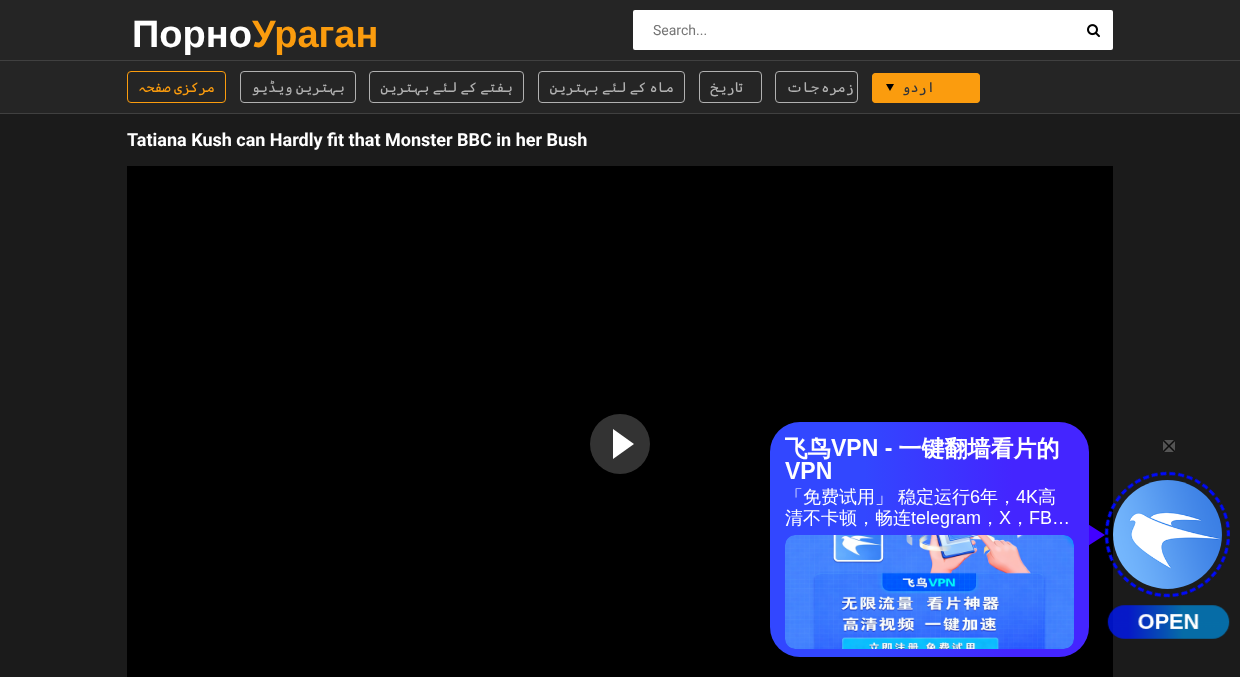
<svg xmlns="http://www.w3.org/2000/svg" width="1240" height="677">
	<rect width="100%" height="100%" fill="#1B1B1B" />
	<rect x="0" y="0" width="1240" height="60" fill="#252525" />
	<rect x="0" y="60" width="1240" height="1" fill="#404040" />
	<text x="132" y="47" font-family="Liberation Sans" font-size="38" font-weight="700" fill="#FFFFFF">Порно</text>
	<text x="252" y="47" font-family="Liberation Sans" font-size="38" font-weight="700" fill="#FB9C0E">Ураган</text>
	<rect x="633" y="10" width="480" height="40" rx="2" fill="#FFFFFF" />
	<text x="653" y="35" font-family="Roboto" font-size="14" fill="#757575">Search...</text>
	<image x="1087" y="24" width="13" height="14" href="assets/img1.png" />
	<rect x="0" y="61" width="1240" height="52" fill="#252525" />
	<rect x="0" y="113" width="1240" height="1" fill="#404040" />
	<rect x="127.5" y="71.5" width="98" height="31" rx="3.5" fill="none" stroke="#FB9C0E" />
	<text x="215" y="92" word-spacing="-5" font-family="Cascadia Code" font-size="14" direction="rtl" fill="#FB9C0E">مرکزی صفحہ</text>
	<rect x="240.5" y="71.5" width="115" height="31" rx="3.5" fill="none" stroke="#B1B1B1" />
	<text x="345" y="92" word-spacing="-5" font-family="Cascadia Code" font-size="14" direction="rtl" fill="#B1B1B1">بہترین ویڈیو</text>
	<rect x="369.5" y="71.5" width="154" height="31" rx="3.5" fill="none" stroke="#B1B1B1" />
	<text x="513" y="92" word-spacing="-5" font-family="Cascadia Code" font-size="14" direction="rtl" fill="#B1B1B1">ہفتے کے لئے بہترین</text>
	<rect x="538.5" y="71.5" width="146" height="31" rx="3.5" fill="none" stroke="#B1B1B1" />
	<text x="674" y="92" word-spacing="-5" font-family="Cascadia Code" font-size="14" direction="rtl" fill="#B1B1B1">ماہ کے لئے بہترین</text>
	<rect x="699.5" y="71.5" width="62" height="31" rx="3.5" fill="none" stroke="#B1B1B1" />
	<text x="743" y="92" font-family="Cascadia Code" font-size="14" direction="rtl" fill="#B1B1B1">تاریخ</text>
	<rect x="775.5" y="71.5" width="82" height="31" rx="3.5" fill="none" stroke="#B1B1B1" />
	<text x="854" y="92" word-spacing="-6" font-family="Cascadia Code" font-size="14" direction="rtl" fill="#B1B1B1">زمرہ جات</text>
	<rect x="872" y="73" width="108" height="30" rx="4" fill="#FB9C0E" />
	<path d="M894 84L890 91L886 84Z" fill="#000000" fill-rule="evenodd" />
	<rect x="872.5" y="73.5" width="107" height="29" rx="3.5" fill="none" stroke="#FB9C0E" />
	<text x="935" y="92" font-family="Cascadia Code" font-size="14" direction="rtl" fill="#32353A">اردو</text>
	<text x="127" y="146" font-family="Roboto" font-size="18" font-weight="700" fill="#FFFFFF">Tatiana Kush can Hardly fit that Monster BBC in her Bush</text>
	<rect x="127" y="166" width="986" height="511" fill="#000000" />
	<circle cx="620" cy="444" r="30" fill="#333333" />
	<path d="M613 459V429L634 444Z" fill="#FFFFFF" />
	<image x="770" y="422" width="460" height="235" href="assets/img2.png" />
</svg>
